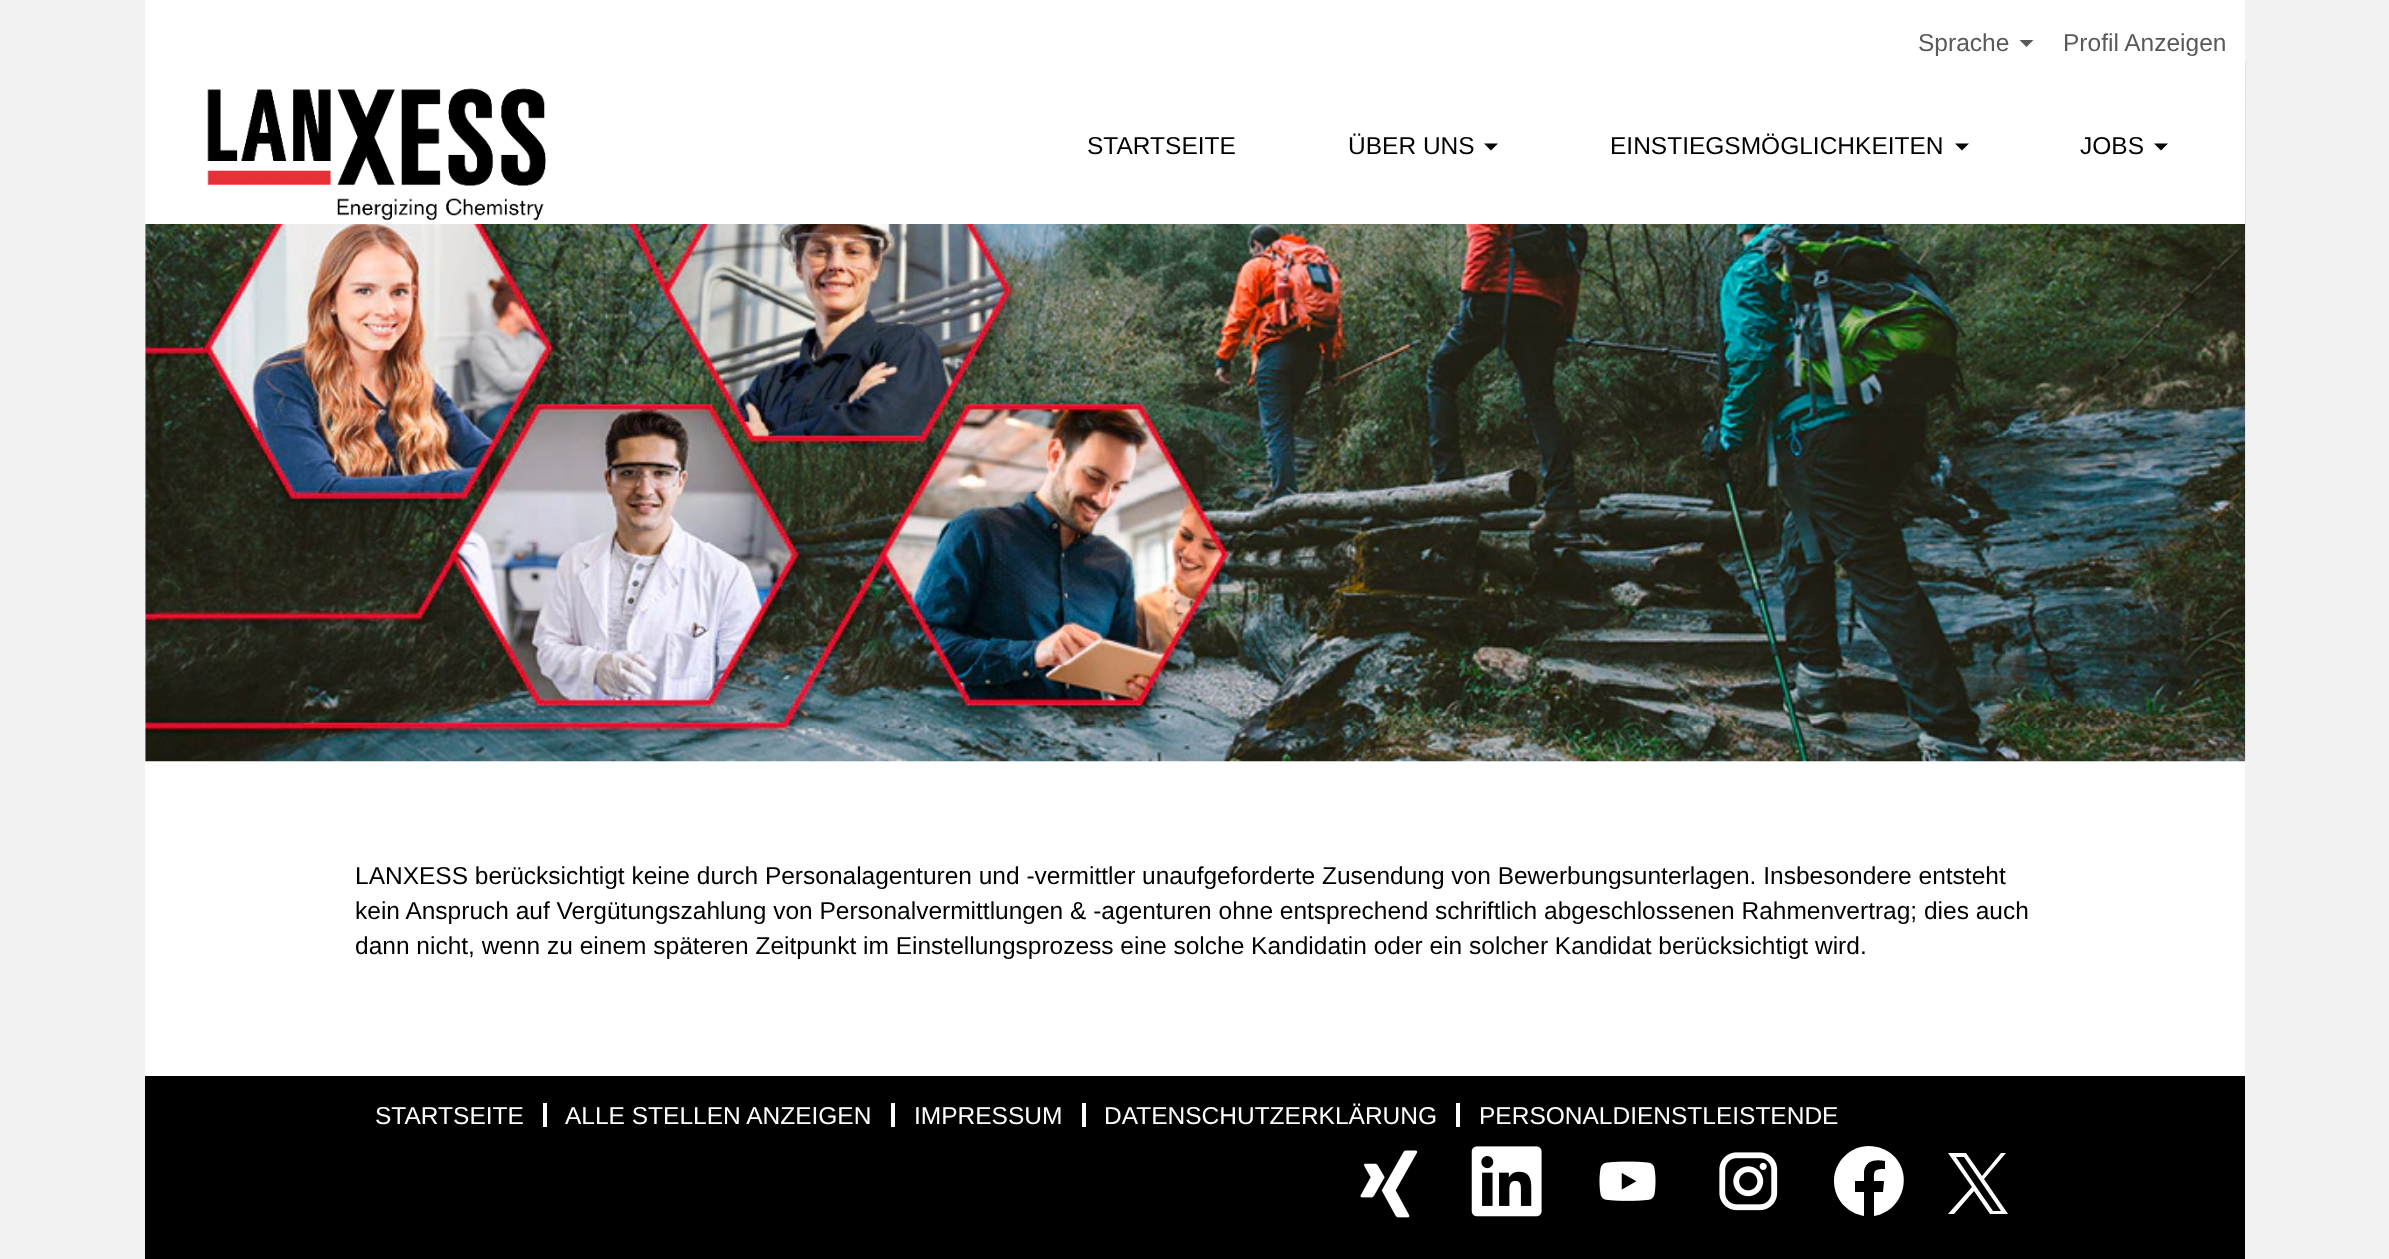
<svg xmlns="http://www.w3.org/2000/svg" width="2389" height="1259">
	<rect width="100%" height="100%" fill="#F2F2F2" />
	<rect x="145" y="224" width="2100" height="852" fill="#FFFFFF" />
	<image x="145" y="61" width="2101" height="701" href="assets/img2.png" />
	<rect x="145" y="0" width="2100" height="224" fill="#FFFFFF" />
	<text x="1918" y="51" font-family="Liberation Sans" font-size="24.5" fill="#595959">Sprache</text>
	<path d="M2019.5 40H2033.5L2026.5 47Z" fill="#595959" />
	<text x="2063" y="51" font-family="Liberation Sans" font-size="24.5" fill="#595959">Profil Anzeigen</text>
	<image x="207" y="88" width="339" height="133" href="assets/img1.png" />
	<g font-family="Liberation Sans" font-size="24.5" fill="#000000">
		<text x="1087" y="154">STARTSEITE</text>
		<text x="1348" y="154">ÜBER UNS</text>
	</g>
	<path d="M1484 143.5H1498L1491 150.5Z" fill="#000000" />
	<text x="1610" y="154" font-family="Liberation Sans" font-size="24.5" fill="#000000">EINSTIEGSMÖGLICHKEITEN</text>
	<path d="M1955 143.5H1969L1962 150.5Z" fill="#000000" />
	<text x="2080" y="154" font-family="Liberation Sans" font-size="24.5" fill="#000000">JOBS</text>
	<path d="M2154 143.5H2168L2161 150.5Z" fill="#000000" />
	<g font-family="Liberation Sans" font-size="24.5" fill="#000000">
		<text x="355" y="884">LANXESS berücksichtigt keine durch Personalagenturen und -vermittler unaufgeforderte Zusendung von Bewerbungsunterlagen. Insbesondere entsteht</text>
		<text x="355" y="919">kein Anspruch auf Vergütungszahlung von Personalvermittlungen &amp; -agenturen ohne entsprechend schriftlich abgeschlossenen Rahmenvertrag; dies auch</text>
		<text x="355" y="954">dann nicht, wenn zu einem späteren Zeitpunkt im Einstellungsprozess eine solche Kandidatin oder ein solcher Kandidat berücksichtigt wird.</text>
	</g>
	<rect x="145" y="1076" width="2100" height="183" fill="#000000" />
	<rect x="543" y="1103" width="4" height="24" fill="#FFFFFF" />
	<text x="375" y="1124" font-family="Liberation Sans" font-size="24.5" fill="#FFFFFF">STARTSEITE</text>
	<rect x="891" y="1103" width="4" height="24" fill="#FFFFFF" />
	<text x="565" y="1124" font-family="Liberation Sans" font-size="24.5" fill="#FFFFFF">ALLE STELLEN ANZEIGEN</text>
	<rect x="1082" y="1103" width="4" height="24" fill="#FFFFFF" />
	<text x="914" y="1124" font-family="Liberation Sans" font-size="24.5" fill="#FFFFFF">IMPRESSUM</text>
	<rect x="1456" y="1103" width="4" height="24" fill="#FFFFFF" />
	<g font-family="Liberation Sans" font-size="24.5" fill="#FFFFFF">
		<text x="1104" y="1124">DATENSCHUTZERKLÄRUNG</text>
		<text x="1479" y="1124">PERSONALDIENSTLEISTENDE</text>
	</g>
	<image x="1360" y="1150" width="58" height="68" href="assets/img3.png" />
	<image x="1471" y="1146" width="71" height="71" href="assets/img4.png" />
	<image x="1599" y="1161" width="57" height="40" href="assets/img5.png" />
	<image x="1719" y="1152" width="59" height="59" href="assets/img6.png" />
	<path d="M1869 1146C1850 1146 1834 1162 1834 1181C1834 1199 1847 1213 1864 1216V1192H1855V1181H1864V1171C1866 1160 1876 1159 1885 1161V1169C1873 1169 1874 1171 1874 1181H1884L1883 1192H1874V1216C1905 1211 1915 1170 1889 1152C1883 1148 1876 1146 1869 1146Z" fill="#FFFFFF" />
	<path d="M1984 1179L2006 1153H2001L1982 1176L1966 1153H1948L1972 1187L1948 1214H1954L1974 1191L1990 1214H2008ZM1977 1188L1956 1157H1964L2001 1211H1993Z" fill="#FFFFFF" />
</svg>
